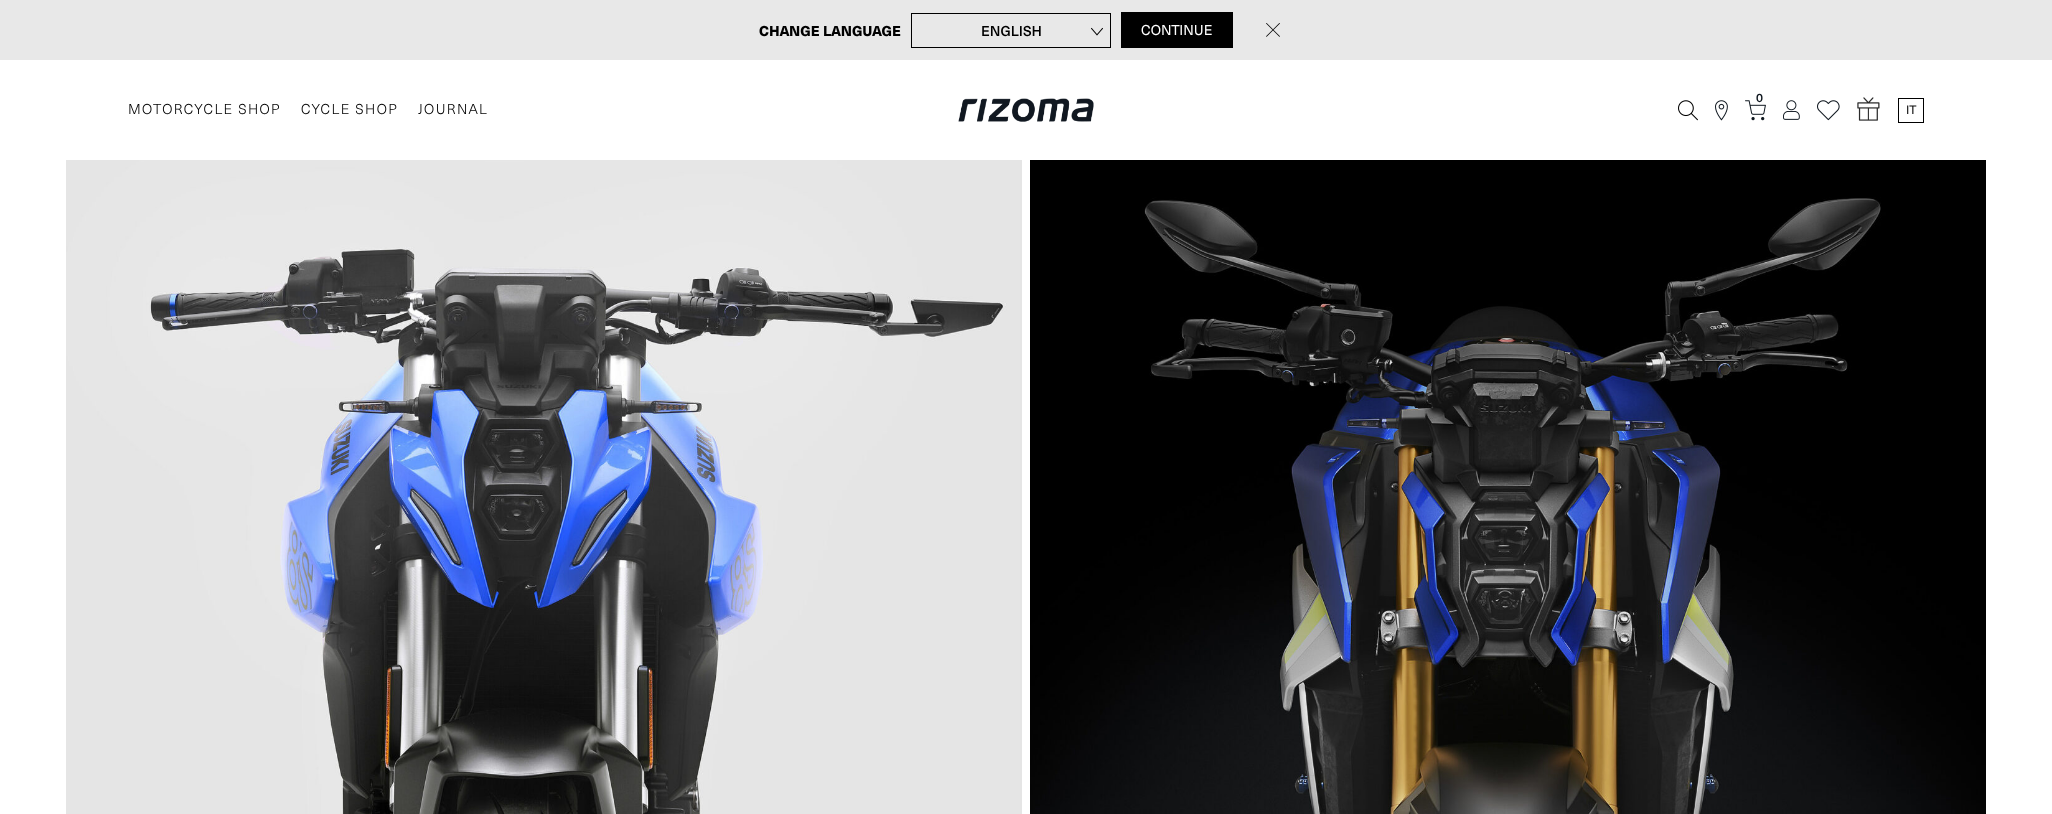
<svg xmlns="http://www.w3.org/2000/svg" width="2052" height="814">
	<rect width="100%" height="100%" fill="#FFFFFF" />
	<rect x="0" y="0" width="2052" height="60" fill="#E8E8E8" />
	<text x="759" y="36" font-family="'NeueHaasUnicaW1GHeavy'" font-size="14" font-weight="900" fill="#000000">CHANGE LANGUAGE</text>
	<rect x="1110" y="13" width="1" height="35" fill="#000000" />
	<rect x="911" y="13" width="1" height="35" fill="#000000" />
	<rect x="912" y="13" width="198" height="1" fill="#000000" />
	<text x="981" y="36" font-family="'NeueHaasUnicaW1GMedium'" font-size="14" font-weight="500" fill="#000000">ENGLISH</text>
	<rect x="912" y="47" width="198" height="1" fill="#000000" />
	<image x="1091" y="27" width="12" height="9" href="assets/img1.png" />
	<rect x="1121" y="12" width="112" height="36" fill="#000000" />
	<text x="1141" y="35" font-family="'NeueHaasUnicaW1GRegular'" font-size="14" fill="#FFFFFF">CONTINUE</text>
	<image x="1266" y="23" width="14" height="14" href="assets/img2.png" />
	<g font-family="'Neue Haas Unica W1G'" font-size="14" font-weight="300" letter-spacing="1.4" fill="#000000">
		<text x="128" y="114">MOTORCYCLE SHOP</text>
		<text x="301" y="114">CYCLE SHOP</text>
		<text x="418" y="114">JOURNAL</text>
	</g>
	<image x="958" y="98" width="136" height="24" href="assets/img3.png" />
	<image x="1678" y="100" width="20" height="21" href="assets/img4.png" />
	<image x="1715" y="100" width="13" height="21" href="assets/img5.png" />
	<image x="1745" y="100" width="21" height="21" href="assets/img6.png" />
	<text x="1756" y="102" font-family="'NeueHaasUnicaW1GMedium'" font-size="12" font-weight="500" fill="#101820">0</text>
	<image x="1783" y="100" width="17" height="20" href="assets/img7.png" />
	<image x="1817" y="100" width="23" height="21" href="assets/img8.png" />
	<image x="1857" y="97" width="23" height="24" href="assets/img9.png" />
	<rect x="1898.5" y="98.5" width="25" height="24" fill="none" stroke="#000000" />
	<text x="1906" y="114" font-family="'NeueHaasUnicaW1GRegular'" font-size="12" fill="#000000">IT</text>
	<image x="66" y="160" width="956" height="654" href="assets/img10.png" />
	<image x="1030" y="160" width="956" height="654" href="assets/img11.png" />
</svg>
